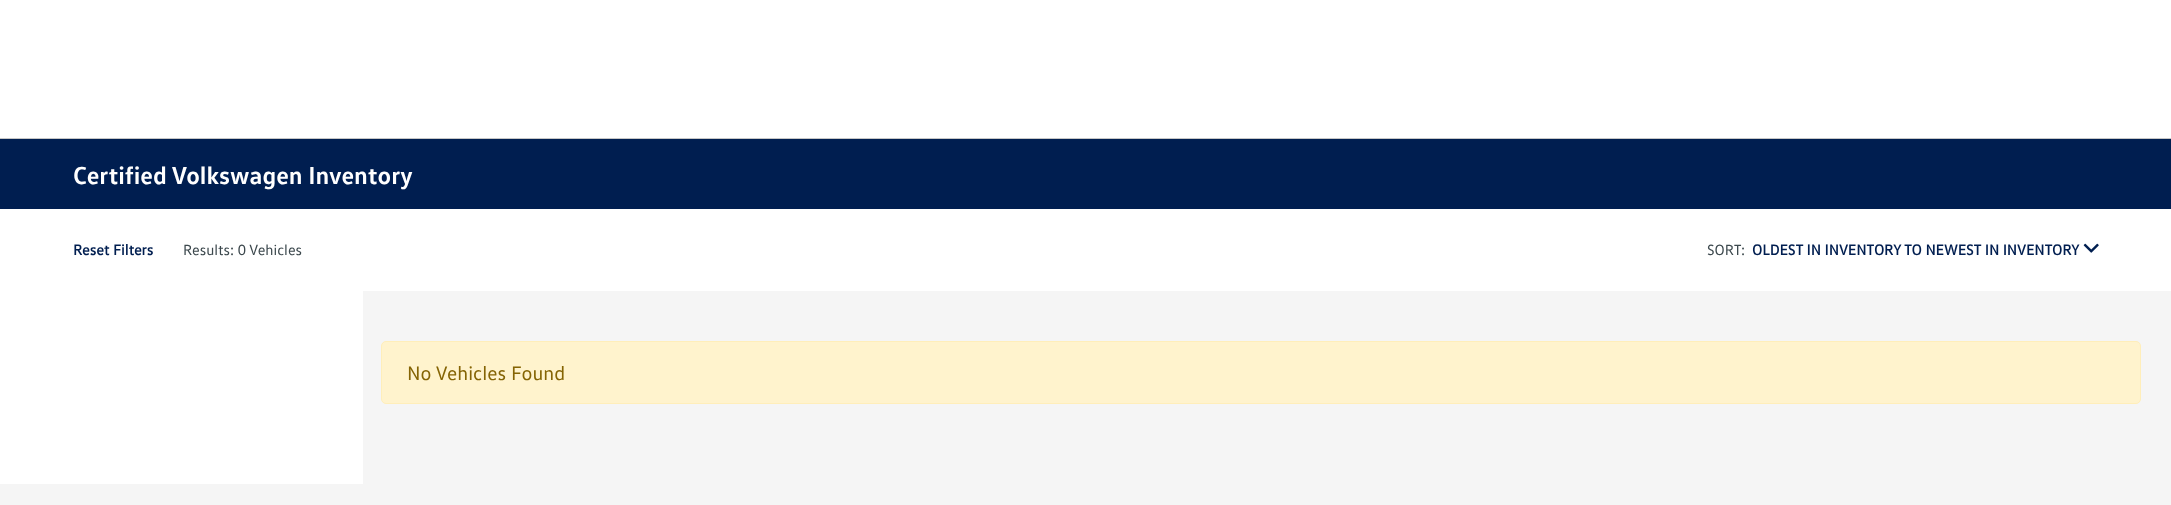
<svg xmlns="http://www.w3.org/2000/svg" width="2171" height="505">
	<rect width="100%" height="100%" fill="#FFFFFF" />
	<rect x="0" y="291" width="2171" height="214" fill="#F5F5F5" />
	<rect x="0" y="139" width="2171" height="70" fill="#001E50" />
	<rect x="0" y="138" width="2171" height="1" fill="#C6C6C6" />
	<text x="73" y="184" font-family="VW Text" font-size="25" font-weight="700" fill="#FFFFFF">Certified Volkswagen Inventory</text>
	<text x="73" y="255" font-family="'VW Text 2'" font-size="15" font-weight="700" fill="#001E50">Reset Filters</text>
	<g font-family="VW Text" font-size="15" fill="#3C484D">
		<text x="183" y="255">Results: 0 Vehicles</text>
		<text x="1707" y="255">SORT:</text>
	</g>
	<text x="1752" y="255" font-family="'VW Text 2'" font-size="15" font-weight="700" fill="#001E50">OLDEST IN INVENTORY TO NEWEST IN INVENTORY</text>
	<image x="2083" y="243" width="16" height="10" href="assets/img1.png" />
	<rect x="0" y="291" width="363" height="193" fill="#FFFFFF" />
	<rect x="381.5" y="341.5" width="1759" height="62" rx="4.5" fill="#FFF3CD" stroke="#FFEEBA" />
	<text x="407" y="380" font-family="VW Text" font-size="20" fill="#856404">No Vehicles Found</text>
</svg>
